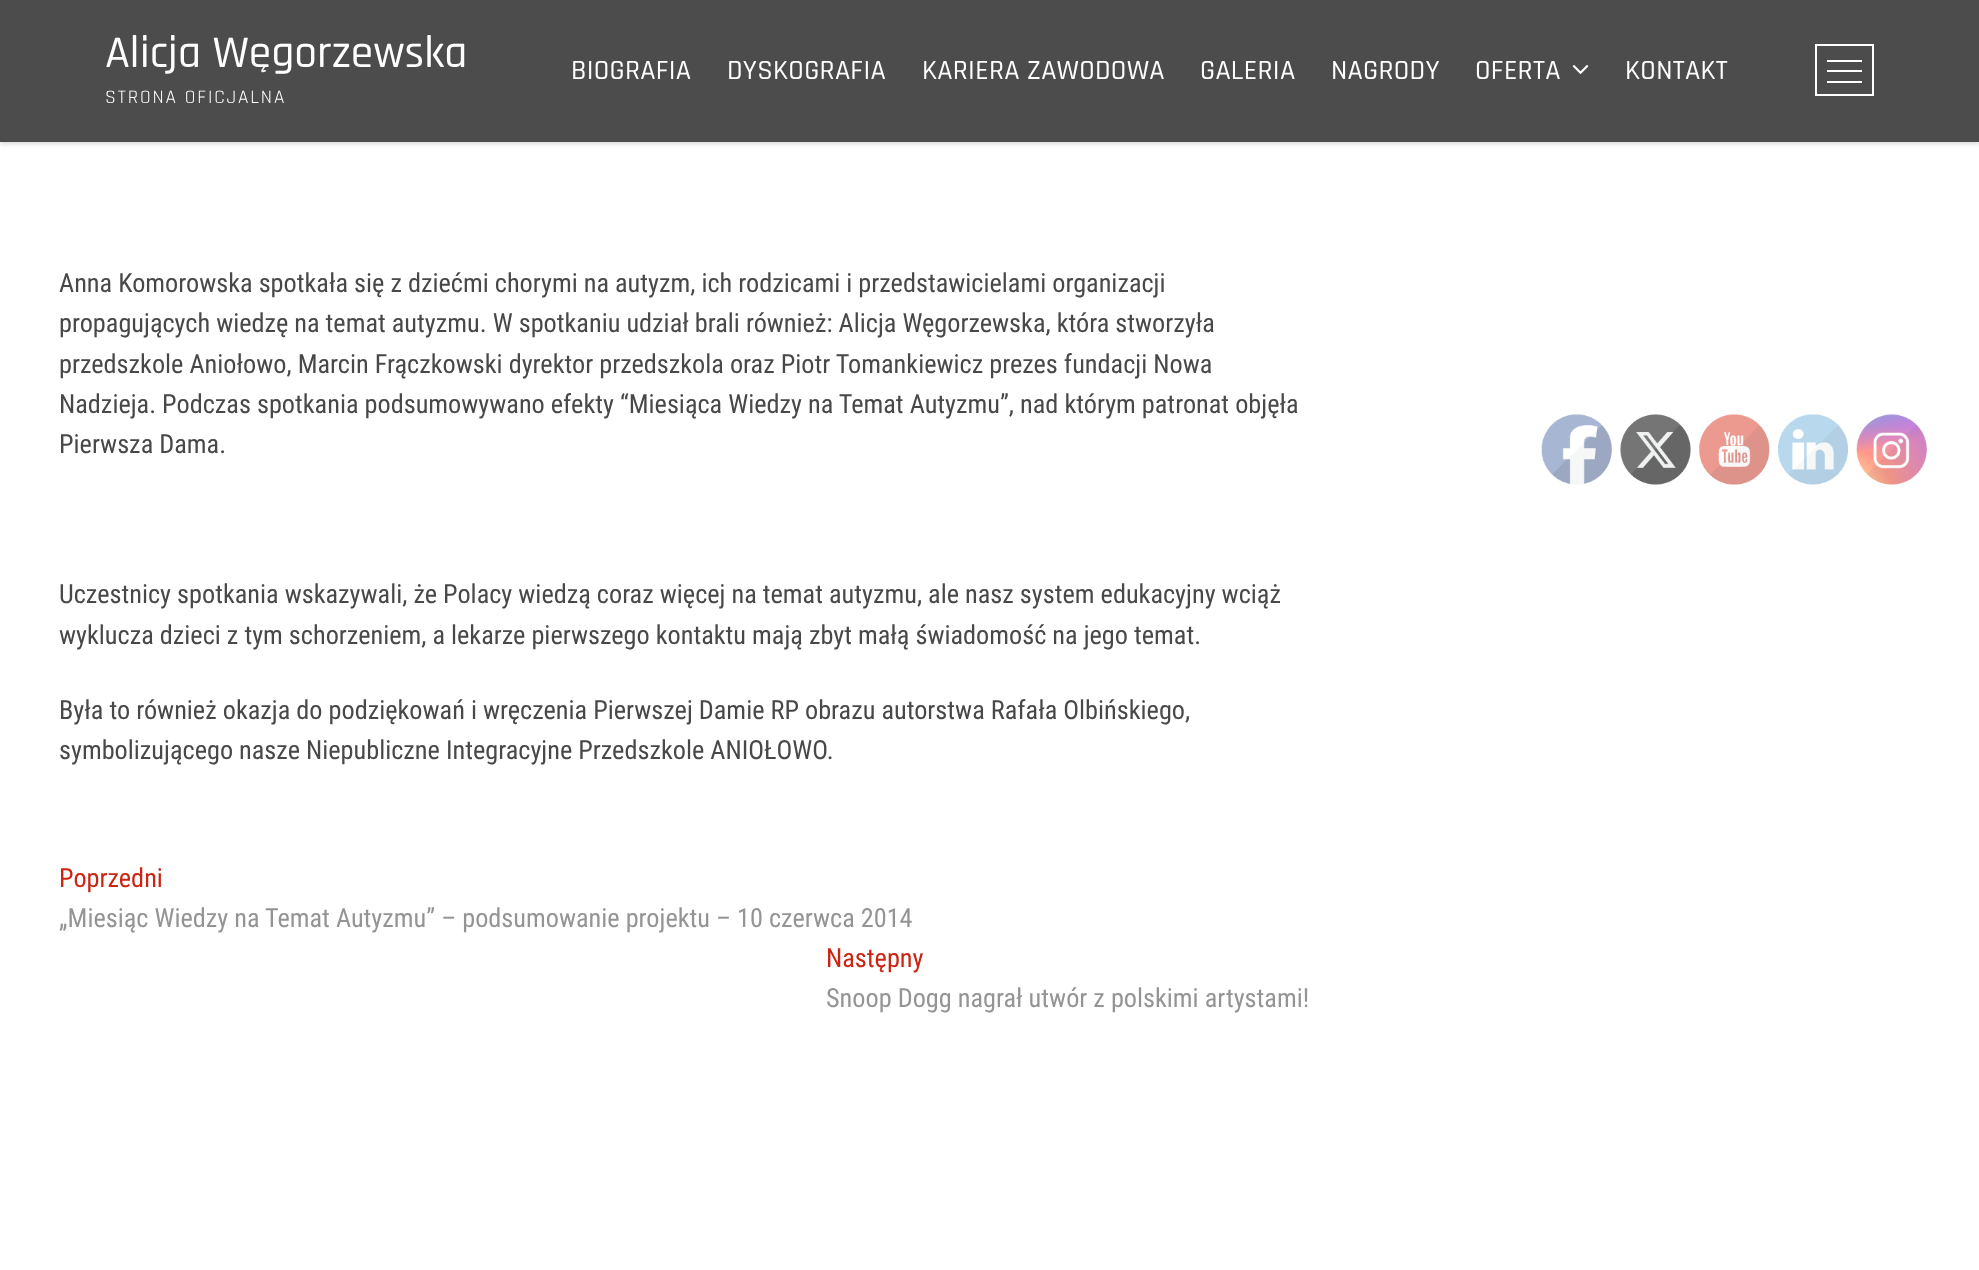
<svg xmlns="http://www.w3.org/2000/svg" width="1979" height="1270">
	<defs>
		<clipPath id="clip1"><path d="M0 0H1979V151H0ZM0 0H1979V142H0Z" clip-rule="evenodd" /></clipPath>
	</defs>
	<rect width="100%" height="100%" fill="#FFFFFF" />
	<g clip-path="url(#clip1)">
		<rect x="0" y="2" width="1979" height="142" fill="#000000" fill-opacity="0.15" filter="blur(2px)" />
	</g>
	<rect x="0" y="0" width="1979" height="142" fill="#000000" fill-opacity="0.7" />
	<text x="105" y="67" font-family="Rajdhani" font-size="45.5" font-weight="500" fill="#FFFFFF">Alicja Węgorzewska</text>
	<text x="105" y="103" font-family="Rajdhani" font-size="19.25" letter-spacing="1.9" fill="#FFFFFF">STRONA OFICJALNA</text>
	<g font-family="Rajdhani" font-size="28" font-weight="500" letter-spacing="0.3" fill="#FFFFFF">
		<text x="571" y="79">BIOGRAFIA</text>
		<text x="727" y="79">DYSKOGRAFIA</text>
		<text x="922" y="79">KARIERA ZAWODOWA</text>
		<text x="1200" y="79">GALERIA</text>
		<text x="1331" y="79">NAGRODY</text>
		<text x="1475" y="79">OFERTA</text>
	</g>
	<image x="1572" y="65" width="17" height="9" href="assets/img1.png" />
	<text x="1625" y="79" font-family="Rajdhani" font-size="28" font-weight="500" letter-spacing="0.3" fill="#FFFFFF">KONTAKT</text>
	<rect x="1816" y="45" width="57" height="50" fill="none" stroke="#FFFFFF" stroke-width="2" />
	<rect x="1827" y="70" width="35" height="2" fill="#FFFFFF" />
	<rect x="1827" y="60" width="35" height="2" fill="#FFFFFF" />
	<rect x="1827" y="81" width="35" height="2" fill="#FFFFFF" />
	<g font-family="Roboto Condensed" font-size="26.25" fill="#484848">
		<text x="59" y="292">Anna Komorowska spotkała się z dziećmi chorymi na autyzm, ich rodzicami i przedstawicielami organizacji</text>
		<text x="59" y="332">propagujących wiedzę na temat autyzmu. W spotkaniu udział brali również: Alicja Węgorzewska, która stworzyła</text>
		<text x="59" y="373">przedszkole Aniołowo, Marcin Frączkowski dyrektor przedszkola oraz Piotr Tomankiewicz prezes fundacji Nowa</text>
		<text x="59" y="413">Nadzieja. Podczas spotkania podsumowywano efekty “Miesiąca Wiedzy na Temat Autyzmu”, nad którym patronat objęła</text>
		<text x="59" y="453">Pierwsza Dama.</text>
		<text x="59" y="603">Uczestnicy spotkania wskazywali, że Polacy wiedzą coraz więcej na temat autyzmu, ale nasz system edukacyjny wciąż</text>
		<text x="59" y="644">wyklucza dzieci z tym schorzeniem, a lekarze pierwszego kontaktu mają zbyt małą świadomość na jego temat.</text>
		<text x="59" y="719">Była to również okazja do podziękowań i wręczenia Pierwszej Damie RP obrazu autorstwa Rafała Olbińskiego,</text>
		<text x="59" y="759">symbolizującego nasze Niepubliczne Integracyjne Przedszkole ANIOŁOWO.</text>
	</g>
	<text x="59" y="887" font-family="Roboto Condensed" font-size="26.25" fill="#CC2412">Poprzedni</text>
	<text x="59" y="927" font-family="Roboto Condensed" font-size="26.25" fill="#949494">„Miesiąc Wiedzy na Temat Autyzmu” – podsumowanie projektu – 10 czerwca 2014</text>
	<text x="826" y="967" font-family="Roboto Condensed" font-size="26.25" fill="#CC2412">Następny</text>
	<text x="826" y="1007" font-family="Roboto Condensed" font-size="26.25" fill="#949494">Snoop Dogg nagrał utwór z polskimi artystami!</text>
	<image x="1541" y="414" width="71" height="71" href="assets/img2.png" />
	<image x="1620" y="414" width="71" height="71" href="assets/img3.png" />
	<image x="1699" y="414" width="71" height="71" href="assets/img4.png" />
	<image x="1778" y="414" width="70" height="71" href="assets/img5.png" />
	<image x="1856" y="414" width="71" height="71" href="assets/img6.png" />
</svg>
